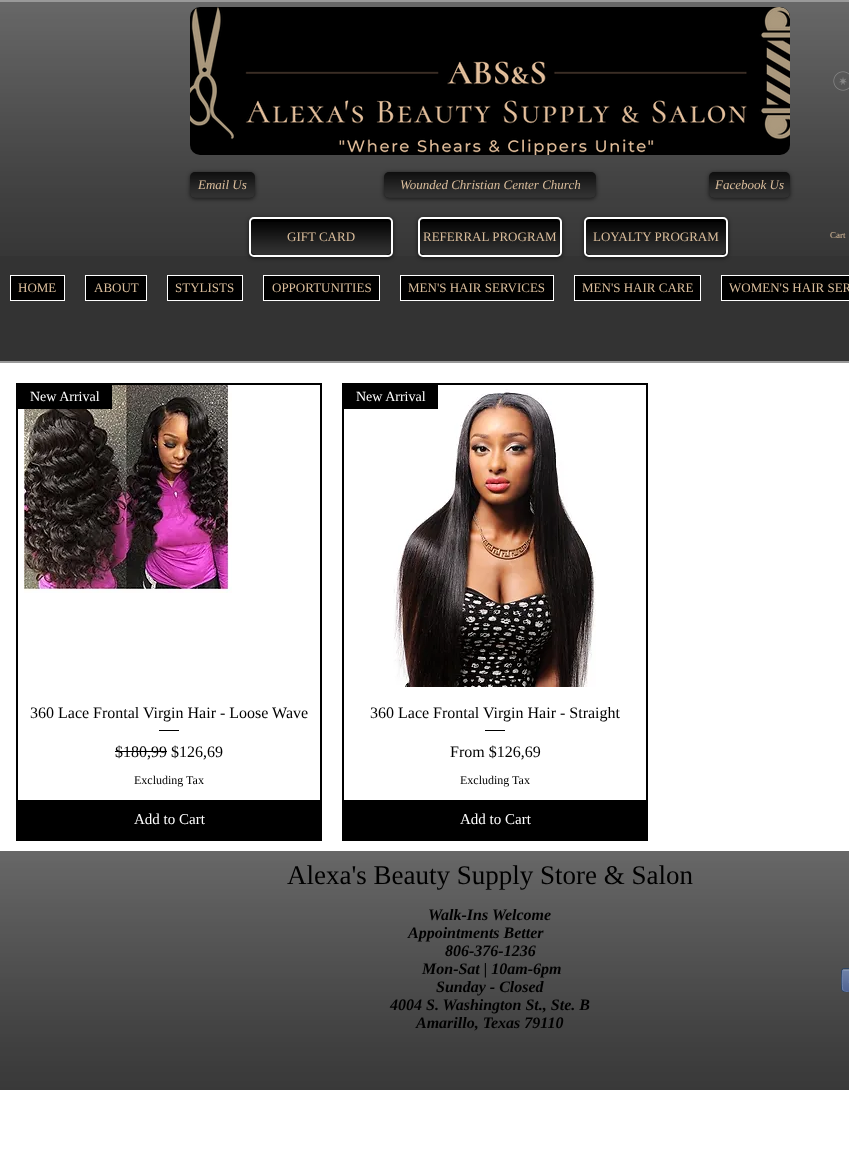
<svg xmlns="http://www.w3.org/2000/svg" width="849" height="1174">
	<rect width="100%" height="100%" fill="#FFFFFF" />
	<rect x="0" y="2" width="849" height="359" fill="#333333" />
	<image x="0" y="2" width="849" height="254" href="assets/img1.png" />
	<rect x="0" y="0" width="849" height="2" fill="#999999" />
	<rect x="0" y="361" width="849" height="2" fill="#999999" />
	<rect x="190" y="7" width="600" height="148" rx="10" fill="#000000" />
	<image x="190" y="7" width="600" height="148" href="assets/img2.png" />
	<image x="833" y="71" width="16" height="20" href="assets/img3.png" />
	<rect x="190" y="173" width="65" height="26" rx="5" fill="#000000" fill-opacity="0.6" filter="blur(2px)" />
	<rect x="190" y="172" width="65" height="26" rx="5" fill="#000000" />
	<image x="190" y="172" width="65" height="26" href="assets/img4.png" />
	<text x="198" y="189" font-family="Liberation Serif" font-size="13" font-style="italic" fill="#DBBE9C">Email Us</text>
	<rect x="384" y="173" width="212" height="26" rx="5" fill="#000000" fill-opacity="0.6" filter="blur(2px)" />
	<rect x="384" y="172" width="212" height="26" rx="5" fill="#000000" />
	<image x="384" y="172" width="212" height="26" href="assets/img5.png" />
	<text x="400" y="189" font-family="Liberation Serif" font-size="13" font-style="italic" fill="#DBBE9C">Wounded Christian Center Church</text>
	<rect x="709" y="173" width="81" height="26" rx="5" fill="#000000" fill-opacity="0.6" filter="blur(2px)" />
	<rect x="709" y="172" width="81" height="26" rx="5" fill="#000000" />
	<image x="709" y="172" width="81" height="26" href="assets/img6.png" />
	<text x="715" y="189" font-family="Liberation Serif" font-size="13" font-style="italic" fill="#DBBE9C">Facebook Us</text>
	<rect x="249" y="218" width="144" height="40" rx="5" fill="#000000" fill-opacity="0.6" filter="blur(2px)" />
	<rect x="250" y="218" width="142" height="38" rx="4" fill="#000000" stroke="#FFFFFF" stroke-width="2" />
	<image x="251" y="222" width="140" height="33" href="assets/img7.png" />
	<text x="287" y="241" font-family="Liberation Serif" font-size="13" fill="#DBBE9C">GIFT CARD</text>
	<rect x="418" y="218" width="144" height="40" rx="5" fill="#000000" fill-opacity="0.6" filter="blur(2px)" />
	<rect x="419" y="218" width="142" height="38" rx="4" fill="#000000" stroke="#FFFFFF" stroke-width="2" />
	<image x="420" y="222" width="140" height="33" href="assets/img8.png" />
	<text x="423" y="241" font-family="Liberation Serif" font-size="13" fill="#DBBE9C">REFERRAL PROGRAM</text>
	<rect x="584" y="218" width="144" height="40" rx="5" fill="#000000" fill-opacity="0.6" filter="blur(2px)" />
	<rect x="585" y="218" width="142" height="38" rx="4" fill="#000000" stroke="#FFFFFF" stroke-width="2" />
	<image x="586" y="222" width="140" height="33" href="assets/img9.png" />
	<text x="593" y="241" font-family="Liberation Serif" font-size="13" fill="#DBBE9C">LOYALTY PROGRAM</text>
	<text x="830" y="238" font-family="Liberation Serif" font-size="9" fill="#DBBE9C">Cart</text>
	<rect x="10.5" y="275.5" width="54" height="25" fill="#000000" stroke="#FFFFFF" />
	<text x="18" y="292" font-family="Liberation Serif" font-size="13" fill="#DBBE9C">HOME</text>
	<rect x="85.5" y="275.5" width="61" height="25" fill="#000000" stroke="#FFFFFF" />
	<text x="94" y="292" font-family="Liberation Serif" font-size="13" fill="#DBBE9C">ABOUT</text>
	<rect x="167.5" y="275.5" width="75" height="25" fill="#000000" stroke="#FFFFFF" />
	<text x="175" y="292" font-family="Liberation Serif" font-size="13" fill="#DBBE9C">STYLISTS</text>
	<rect x="263.5" y="275.5" width="116" height="25" fill="#000000" stroke="#FFFFFF" />
	<text x="272" y="292" font-family="Liberation Serif" font-size="13" fill="#DBBE9C">OPPORTUNITIES</text>
	<rect x="400.5" y="275.5" width="153" height="25" fill="#000000" stroke="#FFFFFF" />
	<text x="408" y="292" font-family="Liberation Serif" font-size="13" fill="#DBBE9C">MEN'S HAIR SERVICES</text>
	<rect x="574.5" y="275.5" width="126" height="25" fill="#000000" stroke="#FFFFFF" />
	<text x="582" y="292" font-family="Liberation Serif" font-size="13" fill="#DBBE9C">MEN'S HAIR CARE</text>
	<rect x="721.5" y="275.5" width="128" height="25" fill="#000000" stroke="#FFFFFF" />
	<text x="729" y="292" font-family="Liberation Serif" font-size="13" fill="#DBBE9C">WOMEN'S HAIR SER</text>
	<rect x="17" y="384" width="304" height="456" fill="none" stroke="#000000" stroke-width="2" />
	<image x="24" y="385" width="208" height="208" href="assets/img10.png" />
	<rect x="18" y="385" width="94" height="24" fill="#000000" />
	<text x="30" y="401" font-family="Liberation Serif" font-size="14" fill="#FFFFFF">New Arrival</text>
	<text x="30" y="718" font-family="Liberation Serif" font-size="16" fill="#000000">360 Lace Frontal Virgin Hair - Loose Wave</text>
	<rect x="159" y="730" width="20" height="1" fill="#000000" />
	<text x="115" y="757" font-family="Liberation Serif" font-size="16" fill="#000000">$180,99 $126,69</text>
	<rect x="115" y="751" width="52" height="1" fill="#000000" />
	<text x="134" y="784" font-family="Liberation Serif" font-size="12" fill="#000000">Excluding Tax</text>
	<rect x="18" y="800" width="302" height="39" fill="#000000" />
	<text x="134" y="824" font-family="Liberation Serif" font-size="15" fill="#FFFFFF">Add to Cart</text>
	<rect x="343" y="384" width="304" height="456" fill="none" stroke="#000000" stroke-width="2" />
	<image x="393" y="389" width="203" height="298" href="assets/img11.png" />
	<rect x="344" y="385" width="94" height="24" fill="#000000" />
	<text x="356" y="401" font-family="Liberation Serif" font-size="14" fill="#FFFFFF">New Arrival</text>
	<text x="370" y="718" font-family="Liberation Serif" font-size="16" fill="#000000">360 Lace Frontal Virgin Hair - Straight</text>
	<rect x="485" y="730" width="20" height="1" fill="#000000" />
	<text x="450" y="757" font-family="Liberation Serif" font-size="16" fill="#000000">From $126,69</text>
	<text x="460" y="784" font-family="Liberation Serif" font-size="12" fill="#000000">Excluding Tax</text>
	<rect x="344" y="800" width="302" height="39" fill="#000000" />
	<text x="460" y="824" font-family="Liberation Serif" font-size="15" fill="#FFFFFF">Add to Cart</text>
	<rect x="0" y="851" width="849" height="239" fill="#333333" />
	<image x="0" y="851" width="849" height="239" href="assets/img12.png" />
	<text x="287" y="884" font-family="Liberation Serif" font-size="27" fill="#000000">Alexa's Beauty Supply Store &amp; Salon</text>
	<g font-family="Liberation Serif" font-size="16" font-weight="700" font-style="italic" fill="#000000">
		<text x="428" y="920">Walk-Ins Welcome</text>
		<text x="408" y="938">Appointments Better</text>
		<text x="445" y="956">806-376-1236</text>
		<text x="422" y="974">Mon-Sat | 10am-6pm</text>
		<text x="436" y="992">Sunday - Closed</text>
		<text x="390" y="1010">4004 S. Washington St., Ste. B</text>
		<text x="416" y="1028">Amarillo, Texas 79110</text>
	</g>
	<rect x="841.5" y="968.5" width="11" height="23" rx="2.5" fill="none" stroke="#2D4565" />
	<image x="842" y="970" width="7" height="21" href="assets/img13.png" />
	<path d="M843 970L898 969.5C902 969.5 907 967 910 970" fill="none" stroke="#9AABC6" />
	<path d="M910 990L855 990.5C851 990.5 846 993 843 990" fill="none" stroke="#6176A3" />
	<path d="M843 990C842 989.5 842 970.5 843 970" fill="none" stroke="#6F83AD" />
	<image x="848" y="980" width="1" height="3" href="assets/img14.png" />
</svg>
